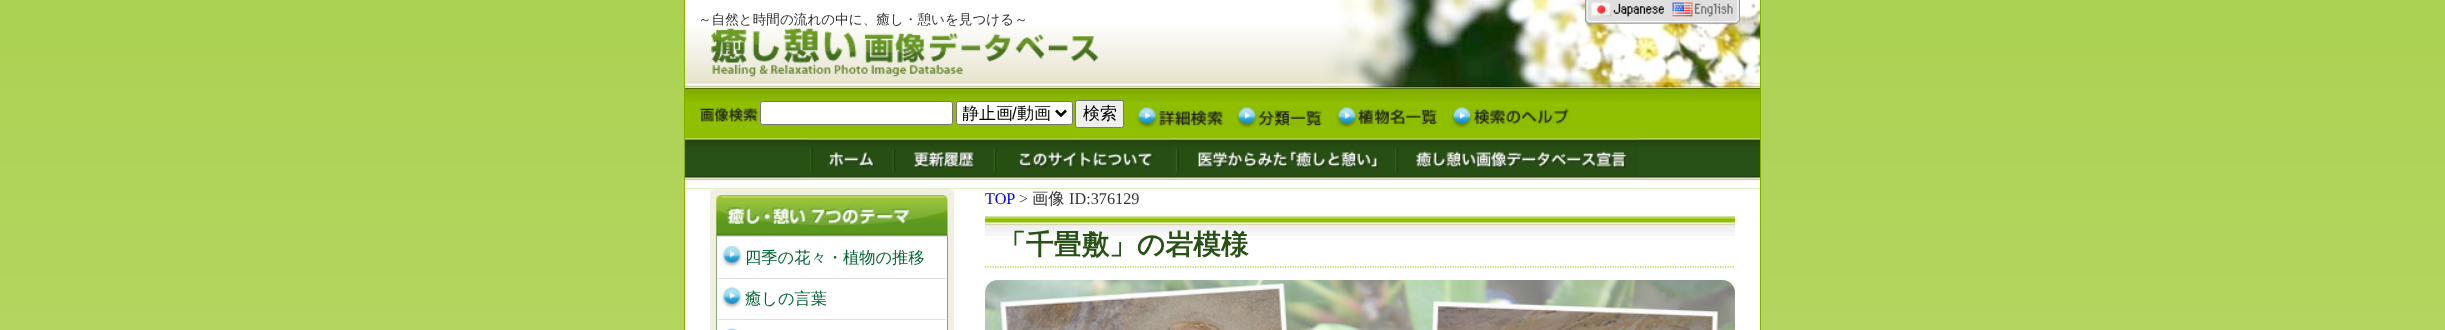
<svg xmlns="http://www.w3.org/2000/svg" width="2445" height="330">
	<defs>
		<clipPath id="clip1"><rect x="963" y="103" width="88" height="21" /></clipPath>
	</defs>
	<rect width="100%" height="100%" fill="#FFFFFF" />
	<image x="0" y="0" width="2445" height="330" href="assets/img1.png" />
	<rect x="685" y="102" width="1075" height="87" fill="#8FBF00" />
	<rect x="1760" y="0" width="1" height="330" fill="#82AE00" />
	<rect x="684" y="0" width="1" height="330" fill="#82AE00" />
	<rect x="685" y="87" width="1075" height="1" fill="#FFFFFF" />
	<image x="685" y="0" width="1075" height="88" href="assets/img2.png" />
	<text x="698" y="24" font-family="WenQuanYi Zen Hei" font-size="13.6" font-weight="500" fill="#333333">～自然と時間の流れの中に、癒し・憩いを見つける～</text>
	<image x="1585" y="0" width="155" height="24" href="assets/img3.png" />
	<image x="711" y="28" width="388" height="49" href="assets/img4.png" />
	<image x="685" y="88" width="1075" height="14" href="assets/img5.png" />
	<image x="699" y="107" width="59" height="15" href="assets/img6.png" />
	<rect x="760.5" y="101.5" width="192" height="23" rx="2" fill="#FFFFFF" stroke="#767676" />
	<rect x="956.5" y="101.5" width="116" height="23" rx="2" fill="#FFFFFF" stroke="#767676" />
	<path d="M1056 110.5L1061 115.5L1066 110.5" fill="none" stroke="#000000" stroke-width="2.5" />
	<g clip-path="url(#clip1)">
		<text x="962" y="119" font-family="WenQuanYi Zen Hei" font-size="17" font-weight="500" fill="#000000">静止画</text>
	</g>
	<text x="1012" y="119" font-family="Liberation Sans" font-size="17" fill="#000000">/</text>
	<text x="1017" y="119" font-family="WenQuanYi Zen Hei" font-size="17" font-weight="500" fill="#000000">動画</text>
	<rect x="1075.5" y="100.5" width="48" height="27" rx="2" fill="#EFEFEF" stroke="#767676" />
	<text x="1083" y="119" font-family="WenQuanYi Zen Hei" font-size="17" font-weight="500" fill="#000000">検索</text>
	<image x="1136" y="107" width="87" height="21" href="assets/img7.png" />
	<image x="1236" y="107" width="86" height="21" href="assets/img8.png" />
	<image x="1336" y="107" width="101" height="21" href="assets/img9.png" />
	<image x="1451" y="107" width="118" height="21" href="assets/img10.png" />
	<rect x="685" y="138" width="1075" height="1" fill="#C0DA74" />
	<image x="685" y="138" width="1075" height="51" href="assets/img11.png" />
	<image x="810" y="138" width="83" height="39" href="assets/img12.png" />
	<image x="892" y="138" width="105" height="39" href="assets/img13.png" />
	<image x="996" y="138" width="177" height="39" href="assets/img14.png" />
	<image x="1176" y="138" width="219" height="39" href="assets/img15.png" />
	<image x="1395" y="138" width="243" height="39" href="assets/img16.png" />
	<rect x="685" y="189" width="1075" height="141" fill="#FFFFFF" />
	<text x="985" y="204" font-family="Liberation Serif" font-size="16.25" fill="#0000EE">TOP</text>
	<text x="1019" y="204" font-family="Liberation Serif" font-size="16.25" fill="#333333">&gt;</text>
	<text x="1032" y="204" font-family="WenQuanYi Zen Hei" font-size="16.25" font-weight="500" fill="#333333">画像</text>
	<text x="1069" y="204" font-family="Liberation Serif" font-size="16.25" fill="#333333">ID:376129</text>
	<image x="985" y="216" width="750" height="20" href="assets/img17.png" />
	<path d="M985 267H1735" fill="none" stroke="#8FBF00" stroke-width="1.2" stroke-dasharray="1.25 1.25" />
	<text x="998" y="254" font-family="WenQuanYi Zen Hei" font-size="27.75" font-weight="700" fill="#285115">「千畳敷」の岩模様</text>
	<image x="985" y="280" width="750" height="50" href="assets/img18.png" />
	<rect x="710" y="189" width="244" height="141" fill="#F1EFE2" />
	<image x="710" y="188" width="244" height="5" href="assets/img19.png" />
	<image x="716" y="195" width="232" height="40" href="assets/img20.png" />
	<rect x="716.5" y="235.5" width="231" height="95" fill="#FFFFFF" stroke="#86A47B" />
	<image x="721" y="246" width="22" height="22" href="assets/img21.png" />
	<rect x="718" y="236" width="228" height="1" fill="#E0DFE3" />
	<text x="745" y="263" font-family="WenQuanYi Zen Hei" font-size="16.25" font-weight="500" fill="#006633">四季の花々・植物の推移</text>
	<image x="721" y="287" width="22" height="22" href="assets/img22.png" />
	<rect x="718" y="278" width="228" height="1" fill="#E0DFE3" />
	<text x="745" y="304" font-family="WenQuanYi Zen Hei" font-size="16.25" font-weight="500" fill="#006633">癒しの言葉</text>
	<image x="722" y="328" width="19" height="2" href="assets/img23.png" />
	<rect x="718" y="319" width="228" height="1" fill="#E0DFE3" />
</svg>
